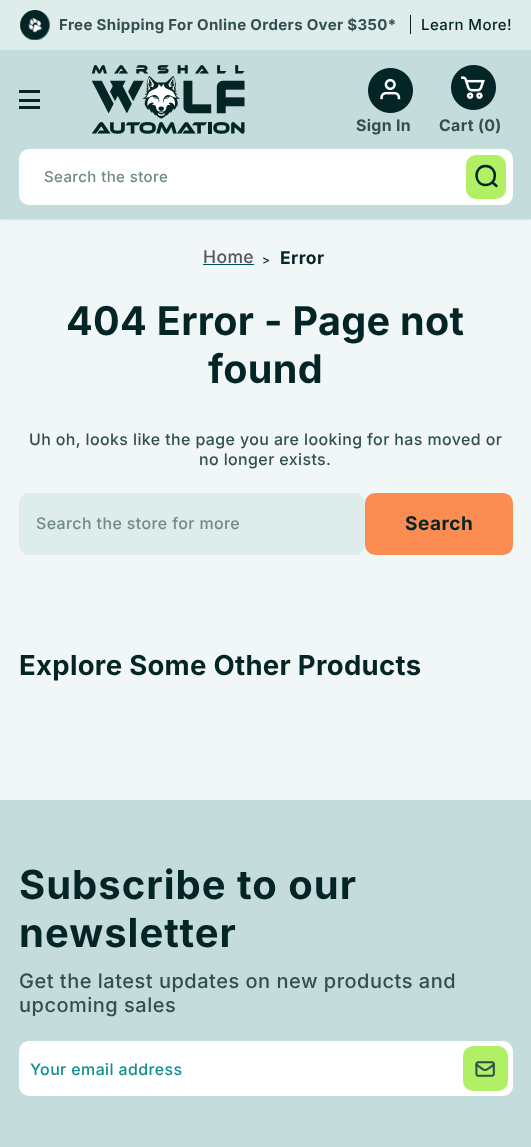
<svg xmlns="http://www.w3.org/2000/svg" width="531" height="1147">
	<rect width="100%" height="100%" fill="#F1F7F7" />
	<rect x="0" y="0" width="531" height="219" fill="#005252" fill-opacity="0.3" filter="blur(1px)" />
	<rect x="0" y="0" width="531" height="50" fill="#DEECEC" />
	<image x="20" y="10" width="30" height="30" href="assets/img1.png" />
	<text x="59" y="30" word-spacing="-0.25" font-family="Inter" font-size="15" font-weight="700" letter-spacing="0.4" fill="#324F4F">Free Shipping For Online Orders Over $350*</text>
	<text x="421" y="30" font-family="Inter" font-size="15" font-weight="500" letter-spacing="0.4" fill="#042525">Learn More!</text>
	<rect x="410" y="15" width="1" height="19" fill="#042525" />
	<rect x="0" y="50" width="531" height="169" fill="#C5DCDC" />
	<rect x="19" y="99" width="21" height="3" fill="#042525" />
	<rect x="19" y="90" width="21" height="3" fill="#042525" />
	<rect x="19" y="106" width="21" height="3" fill="#042525" />
	<image x="91" y="65" width="154" height="69" href="assets/img2.png" />
	<image x="368" y="68" width="45" height="45" href="assets/img3.png" />
	<text x="356" y="131" font-family="Inter" font-size="15.95" font-weight="700" letter-spacing="0.3" fill="#324F4F">Sign In</text>
	<image x="451" y="65" width="45" height="45" href="assets/img4.png" />
	<text x="439" y="131" font-family="Inter" font-size="15.95" font-weight="700" letter-spacing="0.3" fill="#324F4F">Cart (0)</text>
	<rect x="19" y="149" width="494" height="56" rx="10" fill="#FFFFFF" />
	<text x="44" y="182" font-family="Inter" font-size="15" font-weight="500" letter-spacing="0.4" fill="#72898A">Search the store</text>
	<rect x="466" y="155" width="40" height="44" rx="10" fill="#B1F065" />
	<path d="M485.5 185C498 185 498 166 485.5 166C473.5 166 473.5 185 485.5 185ZM492.5 182.5L496.5 186" fill="none" stroke="#042525" stroke-width="2.5" stroke-linecap="round" stroke-linejoin="round" />
	<text x="203" y="263" font-family="Inter" font-size="17.5" font-weight="500" letter-spacing="0.4" fill="#525460">Home</text>
	<rect x="203" y="264" width="51" height="1" fill="#005252" />
	<text x="262" y="264" font-family="Inter" font-size="12" font-weight="500" letter-spacing="0.4" fill="#042525">&gt;</text>
	<text x="280" y="264" font-family="Inter" font-size="17.5" font-weight="700" letter-spacing="0.4" fill="#042525">Error</text>
	<g font-family="Inter" font-size="39.6" font-weight="700" letter-spacing="0.3" fill="#042525">
		<text x="66" y="335">404 Error - Page not</text>
		<text x="208" y="383">found</text>
	</g>
	<g font-family="Inter" font-size="15.95" font-weight="500" letter-spacing="0.4" fill="#324F4F">
		<text x="29" y="445">Uh oh, looks like the page you are looking for has moved or</text>
		<text x="199" y="465">no longer exists.</text>
	</g>
	<rect x="19.5" y="493.5" width="345" height="61" rx="9.5" fill="#DEECEC" stroke="#DEECEC" />
	<text x="36" y="529" font-family="Inter" font-size="15.95" font-weight="500" letter-spacing="0.4" fill="#72898A">Search the store for more</text>
	<rect x="365" y="493" width="148" height="62" rx="10" fill="#FB8D53" />
	<text x="405" y="530" font-family="Inter" font-size="19" font-weight="700" letter-spacing="0.5" fill="#042525">Search</text>
	<text x="19" y="675" font-family="Inter" font-size="27.5" font-weight="700" letter-spacing="0.3" fill="#042525">Explore Some Other Products</text>
	<rect x="0" y="800" width="531" height="347" fill="#C5DCDC" />
	<g font-family="Inter" font-size="40" font-weight="700" letter-spacing="1" fill="#042525">
		<text x="19" y="899">Subscribe to our</text>
		<text x="19" y="947">newsletter</text>
	</g>
	<g font-family="Inter" font-size="20" font-weight="500" letter-spacing="0.5" fill="#324F4F">
		<text x="19" y="988">Get the latest updates on new products and</text>
		<text x="19" y="1012">upcoming sales</text>
	</g>
	<rect x="19" y="1041" width="494" height="55" rx="10" fill="#FFFFFF" />
	<text x="30" y="1075" font-family="Inter" font-size="15.95" font-weight="500" letter-spacing="0.4" fill="#108F8F">Your email address</text>
	<rect x="463" y="1046" width="45" height="45" rx="10" fill="#B1F065" />
	<image x="475" y="1061" width="20" height="16" href="assets/img5.png" />
</svg>
